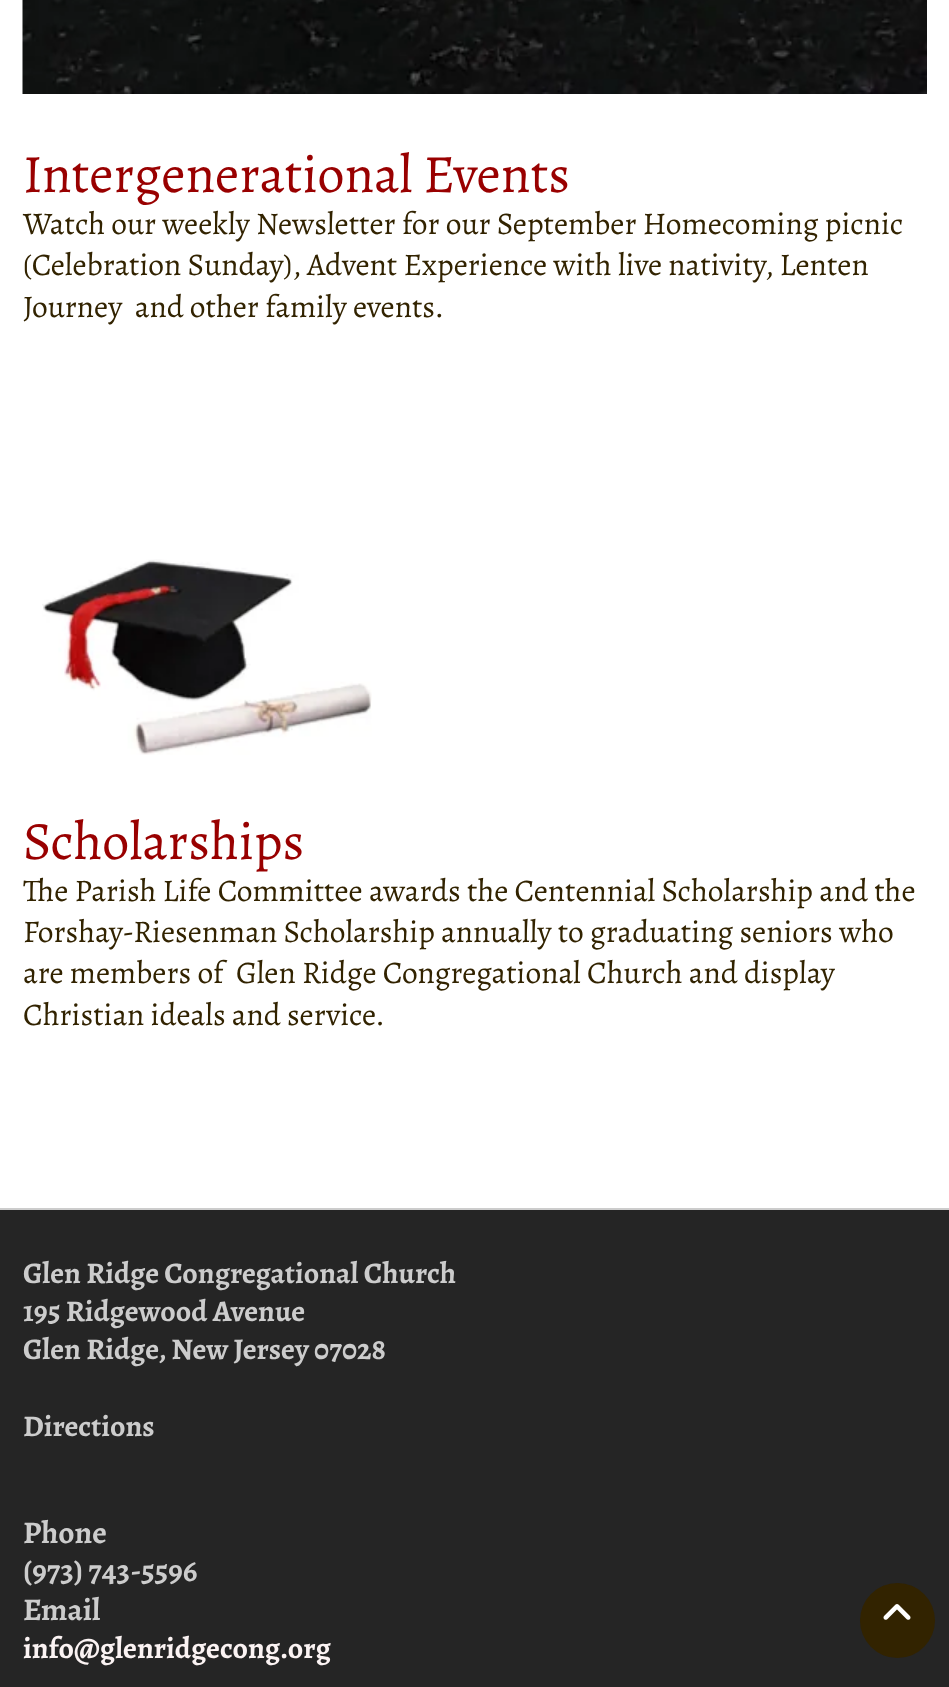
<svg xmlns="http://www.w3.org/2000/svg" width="949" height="1687">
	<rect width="100%" height="100%" fill="#252525" />
	<rect x="0" y="0" width="949" height="1208" fill="#FFFFFF" />
	<image x="22" y="0" width="905" height="94" href="assets/img1.png" />
	<text x="23" y="192" font-family="Alegreya" font-size="54" fill="#990000">Intergenerational Events</text>
	<g font-family="Alegreya" font-size="31.5" fill="#322300">
		<text x="23" y="234">Watch our weekly Newsletter for our September Homecoming picnic</text>
		<text x="23" y="275">(Celebration Sunday), Advent Experience with live nativity, Lenten</text>
		<text x="23" y="317" xml:space="preserve">Journey  and other family events.</text>
	</g>
	<image x="42" y="559" width="330" height="196" href="assets/img2.png" />
	<text x="23" y="859" font-family="Alegreya" font-size="54" fill="#990000">Scholarships</text>
	<g font-family="Alegreya" font-size="31.5" fill="#322300">
		<text x="23" y="901">The Parish Life Committee awards the Centennial Scholarship and the</text>
		<text x="23" y="942">Forshay-Riesenman Scholarship annually to graduating seniors who</text>
		<text x="23" y="983" xml:space="preserve">are members of  Glen Ridge Congregational Church and display</text>
		<text x="23" y="1025">Christian ideals and service.</text>
	</g>
	<rect x="0" y="1208" width="949" height="2" fill="#CCCCCC" />
	<g font-family="Alegreya" font-size="30" font-weight="700" fill="#CCCCCC">
		<text x="23" y="1283">Glen Ridge Congregational Church</text>
		<text x="23" y="1321">195 Ridgewood Avenue</text>
		<text x="23" y="1359">Glen Ridge, New Jersey 07028</text>
		<text x="23" y="1436">Directions</text>
	</g>
	<g font-family="Alegreya" font-size="31.5" font-weight="700" fill="#CCCCCC">
		<text x="23" y="1543">Phone</text>
		<text x="23" y="1581">(973) 743-5596</text>
		<text x="23" y="1620">Email</text>
	</g>
	<text x="23" y="1658" font-family="Alegreya" font-size="30" font-weight="700" fill="#FBF3F3">info@glenridgecong.org</text>
	<circle cx="897.5" cy="1620.5" r="37.5" fill="#322300" />
	<image x="883" y="1604" width="28" height="16" href="assets/img3.png" />
</svg>
